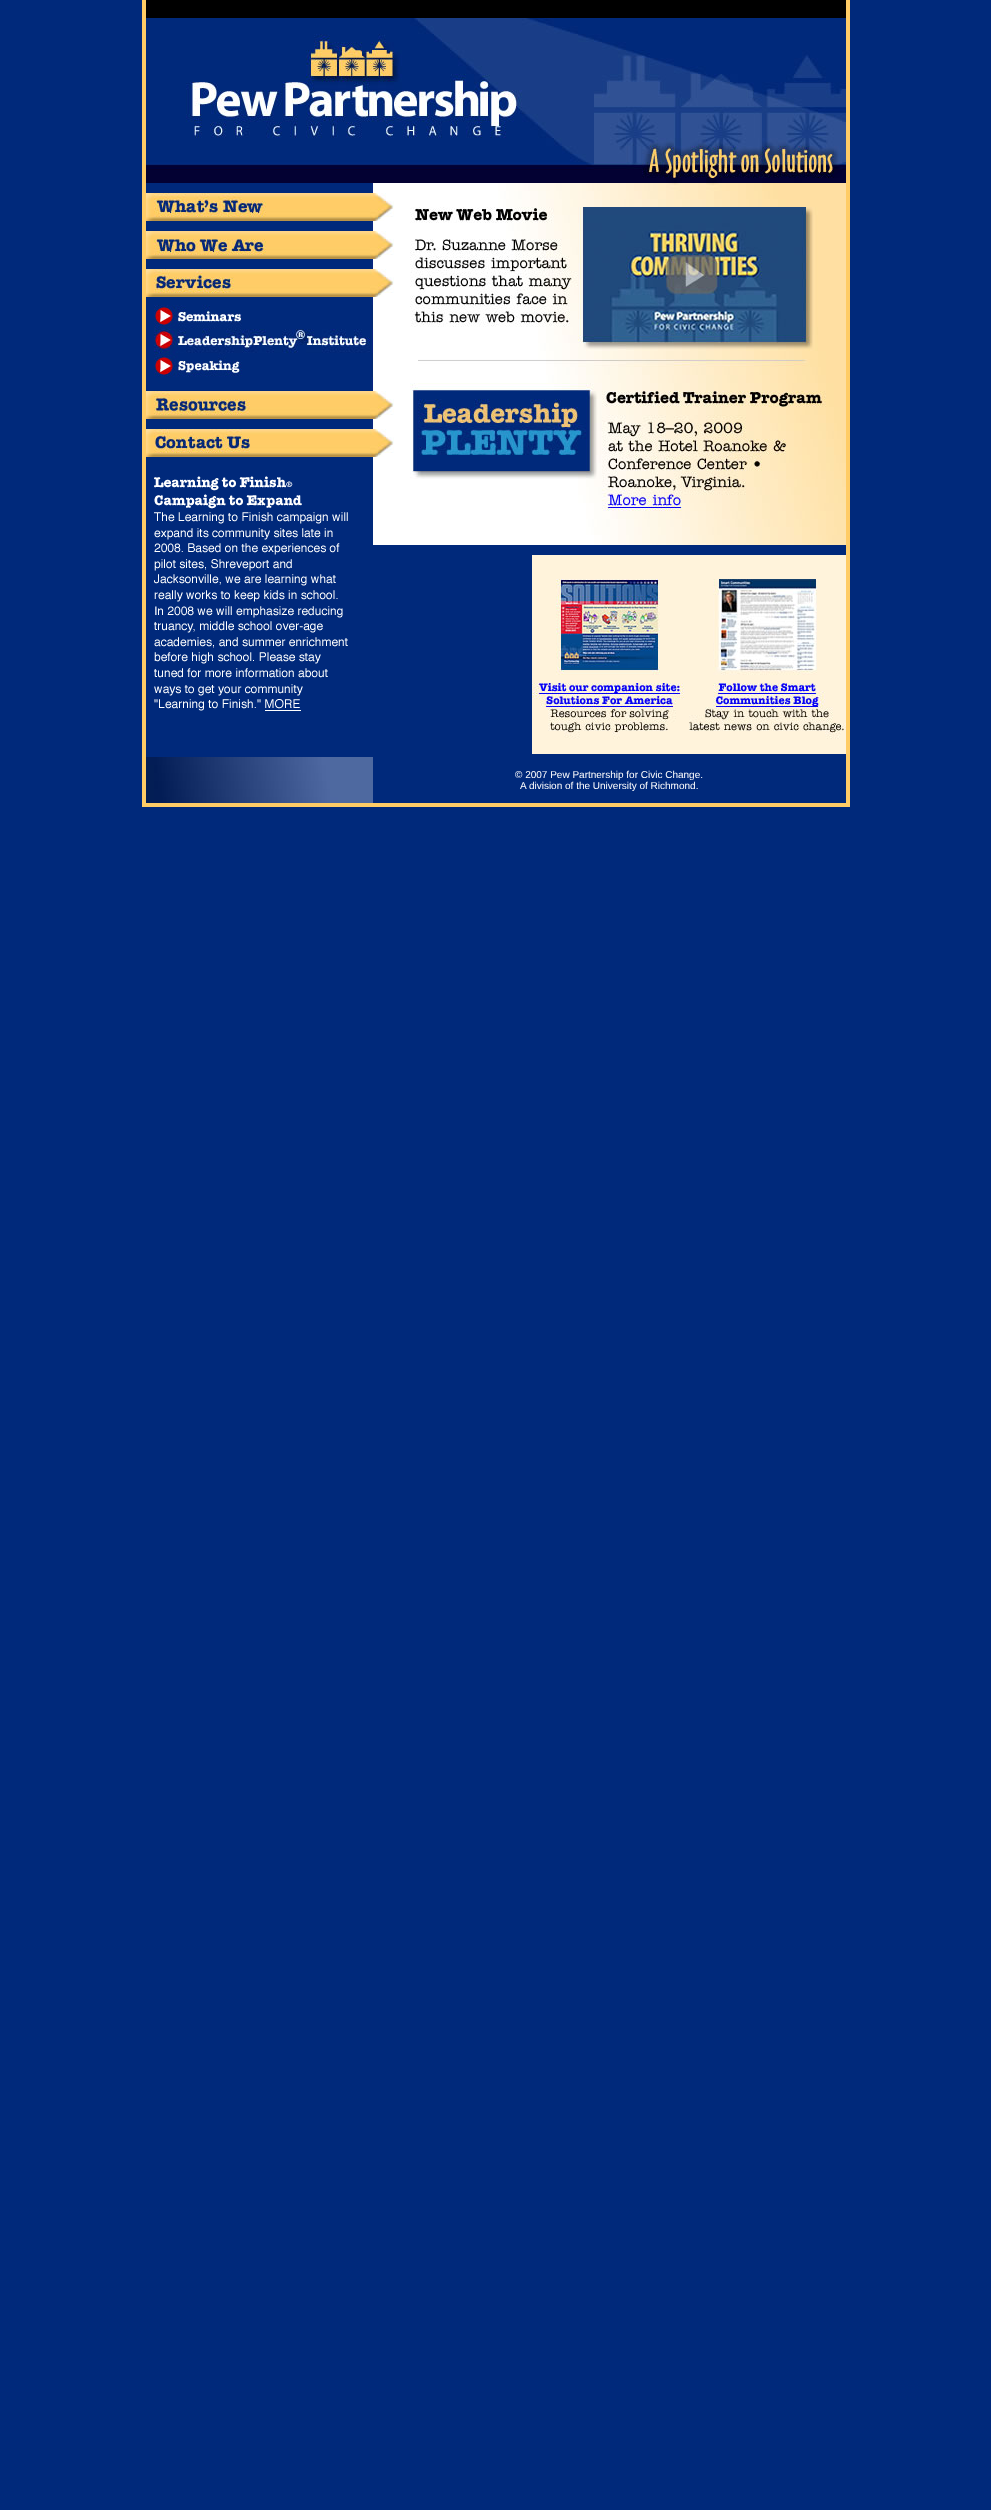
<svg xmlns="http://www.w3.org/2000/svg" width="991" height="2510">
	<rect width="100%" height="100%" fill="#00297B" />
	<rect x="142" y="0" width="4" height="807" fill="#FFCC66" />
	<rect x="146" y="0" width="700" height="18" fill="#000000" />
	<image x="146" y="18" width="700" height="165" href="assets/img1.png" />
	<rect x="373" y="183" width="21" height="362" fill="#FFFFFF" />
	<image x="146" y="183" width="229" height="10" href="assets/img2.png" />
	<image x="146" y="193" width="248" height="28" href="assets/img3.png" />
	<image x="146" y="221" width="229" height="10" href="assets/img2.png" />
	<image x="146" y="231" width="248" height="28" href="assets/img4.png" />
	<image x="146" y="259" width="229" height="10" href="assets/img2.png" />
	<image x="146" y="269" width="248" height="28" href="assets/img5.png" />
	<image x="146" y="297" width="229" height="8" href="assets/img6.png" />
	<image x="146" y="305" width="227" height="24" href="assets/img7.png" />
	<image x="146" y="329" width="229" height="24" href="assets/img8.png" />
	<image x="146" y="353" width="227" height="24" href="assets/img9.png" />
	<image x="146" y="377" width="229" height="14" href="assets/img10.png" />
	<image x="146" y="391" width="248" height="28" href="assets/img11.png" />
	<image x="146" y="419" width="229" height="10" href="assets/img2.png" />
	<image x="146" y="429" width="248" height="28" href="assets/img12.png" />
	<image x="146" y="457" width="227" height="88" href="assets/img13.png" />
	<image x="394" y="183" width="452" height="362" href="assets/img14.png" />
	<image x="154" y="545" width="194" height="166" href="assets/img15.png" />
	<image x="532" y="555" width="157" height="199" href="assets/img16.png" />
	<image x="689" y="555" width="157" height="199" href="assets/img17.png" />
	<image x="146" y="757" width="227" height="46" href="assets/img18.png" />
	<g font-family="Liberation Sans" font-size="10" fill="#FFFFFF">
		<text x="515" y="778">© 2007 Pew Partnership for Civic Change.</text>
		<text x="520" y="789">A division of the University of Richmond.</text>
	</g>
	<rect x="146" y="803" width="700" height="4" fill="#FECC66" />
	<rect x="846" y="0" width="4" height="807" fill="#FFCC66" />
</svg>
